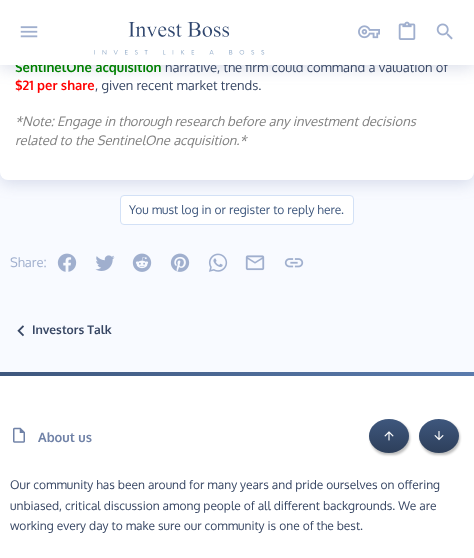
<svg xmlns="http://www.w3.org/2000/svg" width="474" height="558">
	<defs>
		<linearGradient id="g1" gradientUnits="userSpaceOnUse" x1="389" y1="419" x2="389" y2="453"><stop offset="0" stop-color="#3E577D" /><stop offset="1" stop-color="#2D3F5B" /></linearGradient>
		<linearGradient id="g2" gradientUnits="userSpaceOnUse" x1="439" y1="419" x2="439" y2="453"><stop offset="0" stop-color="#3E577D" /><stop offset="1" stop-color="#2D3F5B" /></linearGradient>
		<linearGradient id="g3" gradientUnits="userSpaceOnUse" x1="0" y1="374" x2="474" y2="374"><stop offset="0" stop-color="#3E577D" /><stop offset="1" stop-color="#5A7BAD" /></linearGradient>
	</defs>
	<rect width="100%" height="100%" fill="#F8FAFF" />
	<rect x="0" y="-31" width="474" height="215" rx="8" fill="#586A99" fill-opacity="0.2" filter="blur(7.5px)" />
	<rect x="0" y="-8" width="474" height="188" rx="8" fill="#FFFFFF" />
	<rect x="0" y="4" width="474" height="65" fill="#586A99" fill-opacity="0.2" filter="blur(7.5px)" />
	<text x="15" y="72" font-family="Oxygen" font-size="13" font-weight="700" fill="#008000">SentinelOne acquisition</text>
	<text x="165" y="72" font-family="Oxygen" font-size="13" fill="#384764">narrative, the firm could command a valuation of</text>
	<rect x="0" y="0" width="474" height="65" fill="#FFFFFF" />
	<image x="20" y="26" width="18" height="12" href="assets/img1.png" />
	<image x="94" y="22" width="171" height="33" href="assets/img2.png" />
	<image x="358" y="25" width="22" height="14" href="assets/img3.png" />
	<image x="398" y="21" width="18" height="19" href="assets/img4.png" />
	<image x="436" y="23" width="17" height="17" href="assets/img5.png" />
	<text x="15" y="90" font-family="Oxygen" font-size="13" font-weight="700" fill="#FF0000">$21 per share</text>
	<text x="95" y="90" font-family="Oxygen" font-size="13" fill="#384764">, given recent market trends.</text>
	<g font-family="Oxygen" font-size="13" font-style="italic" fill="#808080">
		<text x="15" y="126">*Note: Engage in thorough research before any investment decisions</text>
		<text x="15" y="145">related to the SentinelOne acquisition.*</text>
	</g>
	<rect x="120.5" y="195.5" width="233" height="29" rx="3.5" fill="#FFFFFF" stroke="#D3E1F6" />
	<text x="129" y="214" font-family="Oxygen" font-size="12" fill="#3E577D">You must log in or register to reply here.</text>
	<text x="10" y="267" font-family="Oxygen" font-size="13" fill="#A0AFCE">Share:</text>
	<image x="57" y="253" width="20" height="19" href="assets/img6.png" />
	<image x="95" y="255" width="20" height="16" href="assets/img7.png" />
	<image x="132" y="253" width="20" height="19" href="assets/img8.png" />
	<image x="170" y="253" width="20" height="19" href="assets/img9.png" />
	<image x="208" y="253" width="20" height="19" href="assets/img10.png" />
	<image x="245" y="255" width="20" height="16" href="assets/img11.png" />
	<image x="284" y="258" width="20" height="10" href="assets/img12.png" />
	<image x="17" y="325" width="7" height="12" href="assets/img13.png" />
	<text x="32" y="334" font-family="Oxygen" font-size="12" font-weight="700" fill="#384764">Investors Talk</text>
	<rect x="0" y="376" width="474" height="182" fill="#FFFFFF" />
	<rect x="370" y="421" width="40" height="34" rx="17" fill="#000000" fill-opacity="0.25" filter="blur(1px)" />
	<ellipse cx="389" cy="436" rx="20" ry="17" fill="url(#g1)" />
	<image x="384" y="431" width="10" height="10" href="assets/img14.png" />
	<rect x="420" y="421" width="40" height="34" rx="17" fill="#000000" fill-opacity="0.25" filter="blur(1px)" />
	<ellipse cx="439" cy="436" rx="20" ry="17" fill="url(#g2)" />
	<image x="434" y="431" width="10" height="10" href="assets/img15.png" />
	<rect x="0" y="372" width="474" height="4" fill="url(#g3)" />
	<image x="13" y="427" width="12" height="16" href="assets/img16.png" />
	<text x="38" y="442" font-family="Oxygen" font-size="13" font-weight="700" fill="#7082A7">About us</text>
	<g font-family="Oxygen" font-size="12" fill="#384764">
		<text x="10" y="489">Our community has been around for many years and pride ourselves on offering</text>
		<text x="10" y="510">unbiased, critical discussion among people of all different backgrounds. We are</text>
		<text x="10" y="530">working every day to make sure our community is one of the best.</text>
	</g>
</svg>
